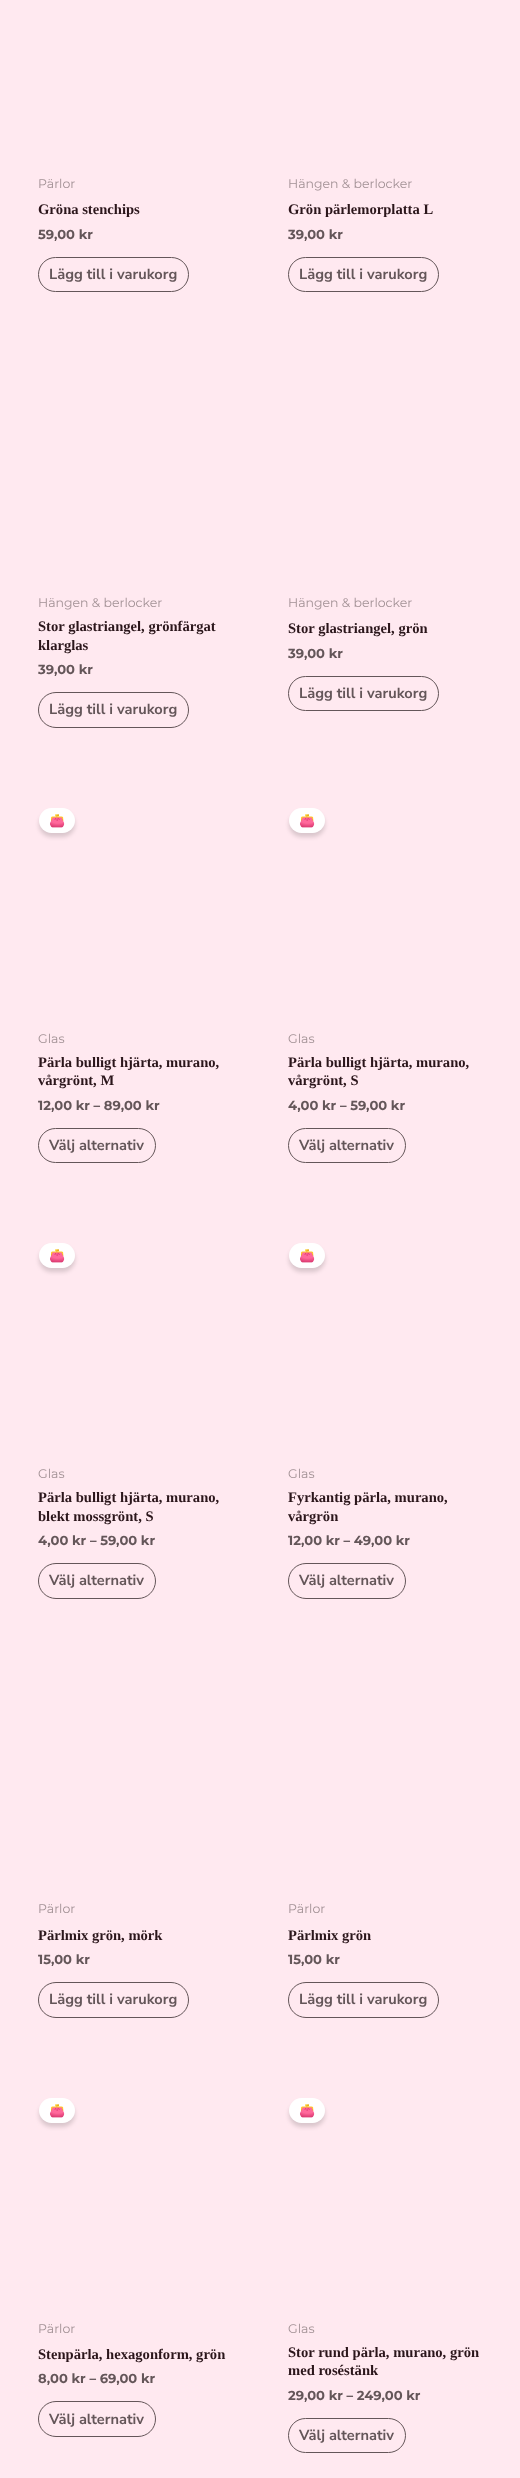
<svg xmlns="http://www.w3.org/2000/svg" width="520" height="2478">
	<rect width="100%" height="100%" fill="#FFE9F0" />
	<text x="38" y="188" font-family="Montserrat" font-size="12.5" fill="#A29195">Pärlor</text>
	<text x="38" y="214" font-family="Liberation Serif" font-size="14.6" font-weight="700" fill="#2B161B">Gröna stenchips</text>
	<text x="38" y="239" font-family="Montserrat" font-size="13.1" font-weight="700" fill="#645659">59,00 kr</text>
	<rect x="38.5" y="257.5" width="150" height="34" rx="17" fill="none" stroke="#645659" />
	<text x="49" y="279" font-family="Nunito Sans" font-size="14.6" font-weight="200" fill="#645659">Lägg till i varukorg</text>
	<text x="288" y="188" font-family="Montserrat" font-size="12.5" fill="#A29195">Hängen &amp; berlocker</text>
	<text x="288" y="214" font-family="Liberation Serif" font-size="14.6" font-weight="700" fill="#2B161B">Grön pärlemorplatta L</text>
	<text x="288" y="239" font-family="Montserrat" font-size="13.1" font-weight="700" fill="#645659">39,00 kr</text>
	<rect x="288.5" y="257.5" width="150" height="34" rx="17" fill="none" stroke="#645659" />
	<text x="299" y="279" font-family="Nunito Sans" font-size="14.6" font-weight="200" fill="#645659">Lägg till i varukorg</text>
	<text x="38" y="607" font-family="Montserrat" font-size="12.5" fill="#A29195">Hängen &amp; berlocker</text>
	<g font-family="Liberation Serif" font-size="14.6" font-weight="700" fill="#2B161B">
		<text x="38" y="631">Stor glastriangel, grönfärgat</text>
		<text x="38" y="650">klarglas</text>
	</g>
	<text x="38" y="674" font-family="Montserrat" font-size="13.1" font-weight="700" fill="#645659">39,00 kr</text>
	<rect x="38.5" y="692.5" width="150" height="35" rx="17.5" fill="none" stroke="#645659" />
	<text x="49" y="714" font-family="Nunito Sans" font-size="14.6" font-weight="200" fill="#645659">Lägg till i varukorg</text>
	<text x="288" y="607" font-family="Montserrat" font-size="12.5" fill="#A29195">Hängen &amp; berlocker</text>
	<text x="288" y="633" font-family="Liberation Serif" font-size="14.6" font-weight="700" fill="#2B161B">Stor glastriangel, grön</text>
	<text x="288" y="658" font-family="Montserrat" font-size="13.1" font-weight="700" fill="#645659">39,00 kr</text>
	<rect x="288.5" y="676.5" width="150" height="34" rx="17" fill="none" stroke="#645659" />
	<text x="299" y="698" font-family="Nunito Sans" font-size="14.6" font-weight="200" fill="#645659">Lägg till i varukorg</text>
	<rect x="39" y="812" width="36" height="25" rx="12.5" fill="#000000" fill-opacity="0.15" filter="blur(2px)" />
	<rect x="39" y="808" width="36" height="25" rx="12.5" fill="#FFFFFF" />
	<text x="49" y="825" font-family="Noto Color Emoji" font-size="13" fill="#645659">👛</text>
	<text x="38" y="1043" font-family="Montserrat" font-size="12.5" fill="#A29195">Glas</text>
	<g font-family="Liberation Serif" font-size="14.6" font-weight="700" fill="#2B161B">
		<text x="38" y="1067">Pärla bulligt hjärta, murano,</text>
		<text x="38" y="1085">vårgrönt, M</text>
	</g>
	<text x="38" y="1110" font-family="Montserrat" font-size="13.1" font-weight="700" fill="#645659">12,00 kr – 89,00 kr</text>
	<rect x="38.5" y="1128.5" width="117" height="34" rx="17" fill="none" stroke="#645659" />
	<text x="49" y="1150" font-family="Nunito Sans" font-size="14.6" font-weight="200" fill="#645659">Välj alternativ</text>
	<rect x="289" y="812" width="36" height="25" rx="12.5" fill="#000000" fill-opacity="0.15" filter="blur(2px)" />
	<rect x="289" y="808" width="36" height="25" rx="12.5" fill="#FFFFFF" />
	<text x="299" y="825" font-family="Noto Color Emoji" font-size="13" fill="#645659">👛</text>
	<text x="288" y="1043" font-family="Montserrat" font-size="12.5" fill="#A29195">Glas</text>
	<g font-family="Liberation Serif" font-size="14.6" font-weight="700" fill="#2B161B">
		<text x="288" y="1067">Pärla bulligt hjärta, murano,</text>
		<text x="288" y="1085">vårgrönt, S</text>
	</g>
	<text x="288" y="1110" font-family="Montserrat" font-size="13.1" font-weight="700" fill="#645659">4,00 kr – 59,00 kr</text>
	<rect x="288.5" y="1128.5" width="117" height="34" rx="17" fill="none" stroke="#645659" />
	<text x="299" y="1150" font-family="Nunito Sans" font-size="14.6" font-weight="200" fill="#645659">Välj alternativ</text>
	<rect x="39" y="1247" width="36" height="25" rx="12.5" fill="#000000" fill-opacity="0.15" filter="blur(2px)" />
	<rect x="39" y="1243" width="36" height="25" rx="12.5" fill="#FFFFFF" />
	<text x="49" y="1260" font-family="Noto Color Emoji" font-size="13" fill="#645659">👛</text>
	<text x="38" y="1478" font-family="Montserrat" font-size="12.5" fill="#A29195">Glas</text>
	<g font-family="Liberation Serif" font-size="14.6" font-weight="700" fill="#2B161B">
		<text x="38" y="1502">Pärla bulligt hjärta, murano,</text>
		<text x="38" y="1521">blekt mossgrönt, S</text>
	</g>
	<text x="38" y="1545" font-family="Montserrat" font-size="13.1" font-weight="700" fill="#645659">4,00 kr – 59,00 kr</text>
	<rect x="38.5" y="1563.5" width="117" height="35" rx="17.5" fill="none" stroke="#645659" />
	<text x="49" y="1585" font-family="Nunito Sans" font-size="14.6" font-weight="200" fill="#645659">Välj alternativ</text>
	<rect x="289" y="1247" width="36" height="25" rx="12.5" fill="#000000" fill-opacity="0.15" filter="blur(2px)" />
	<rect x="289" y="1243" width="36" height="25" rx="12.5" fill="#FFFFFF" />
	<text x="299" y="1260" font-family="Noto Color Emoji" font-size="13" fill="#645659">👛</text>
	<text x="288" y="1478" font-family="Montserrat" font-size="12.5" fill="#A29195">Glas</text>
	<g font-family="Liberation Serif" font-size="14.6" font-weight="700" fill="#2B161B">
		<text x="288" y="1502">Fyrkantig pärla, murano,</text>
		<text x="288" y="1521">vårgrön</text>
	</g>
	<text x="288" y="1545" font-family="Montserrat" font-size="13.1" font-weight="700" fill="#645659">12,00 kr – 49,00 kr</text>
	<rect x="288.5" y="1563.5" width="117" height="35" rx="17.5" fill="none" stroke="#645659" />
	<text x="299" y="1585" font-family="Nunito Sans" font-size="14.6" font-weight="200" fill="#645659">Välj alternativ</text>
	<text x="38" y="1913" font-family="Montserrat" font-size="12.5" fill="#A29195">Pärlor</text>
	<text x="38" y="1940" font-family="Liberation Serif" font-size="14.6" font-weight="700" fill="#2B161B">Pärlmix grön, mörk</text>
	<text x="38" y="1964" font-family="Montserrat" font-size="13.1" font-weight="700" fill="#645659">15,00 kr</text>
	<rect x="38.5" y="1982.5" width="150" height="35" rx="17.5" fill="none" stroke="#645659" />
	<text x="49" y="2004" font-family="Nunito Sans" font-size="14.6" font-weight="200" fill="#645659">Lägg till i varukorg</text>
	<text x="288" y="1913" font-family="Montserrat" font-size="12.5" fill="#A29195">Pärlor</text>
	<text x="288" y="1940" font-family="Liberation Serif" font-size="14.6" font-weight="700" fill="#2B161B">Pärlmix grön</text>
	<text x="288" y="1964" font-family="Montserrat" font-size="13.1" font-weight="700" fill="#645659">15,00 kr</text>
	<rect x="288.5" y="1982.5" width="150" height="35" rx="17.5" fill="none" stroke="#645659" />
	<text x="299" y="2004" font-family="Nunito Sans" font-size="14.6" font-weight="200" fill="#645659">Lägg till i varukorg</text>
	<rect x="39" y="2102" width="36" height="25" rx="12.5" fill="#000000" fill-opacity="0.15" filter="blur(2px)" />
	<rect x="39" y="2098" width="36" height="25" rx="12.5" fill="#FFFFFF" />
	<text x="49" y="2115" font-family="Noto Color Emoji" font-size="13" fill="#645659">👛</text>
	<text x="38" y="2333" font-family="Montserrat" font-size="12.5" fill="#A29195">Pärlor</text>
	<text x="38" y="2359" font-family="Liberation Serif" font-size="14.6" font-weight="700" fill="#2B161B">Stenpärla, hexagonform, grön</text>
	<text x="38" y="2383" font-family="Montserrat" font-size="13.1" font-weight="700" fill="#645659">8,00 kr – 69,00 kr</text>
	<rect x="38.5" y="2401.5" width="117" height="35" rx="17.5" fill="none" stroke="#645659" />
	<text x="49" y="2424" font-family="Nunito Sans" font-size="14.6" font-weight="200" fill="#645659">Välj alternativ</text>
	<rect x="289" y="2102" width="36" height="25" rx="12.5" fill="#000000" fill-opacity="0.15" filter="blur(2px)" />
	<rect x="289" y="2098" width="36" height="25" rx="12.5" fill="#FFFFFF" />
	<text x="299" y="2115" font-family="Noto Color Emoji" font-size="13" fill="#645659">👛</text>
	<text x="288" y="2333" font-family="Montserrat" font-size="12.5" fill="#A29195">Glas</text>
	<g font-family="Liberation Serif" font-size="14.6" font-weight="700" fill="#2B161B">
		<text x="288" y="2357">Stor rund pärla, murano, grön</text>
		<text x="288" y="2375">med roséstänk</text>
	</g>
	<text x="288" y="2400" font-family="Montserrat" font-size="13.1" font-weight="700" fill="#645659">29,00 kr – 249,00 kr</text>
	<rect x="288.5" y="2418.5" width="117" height="34" rx="17" fill="none" stroke="#645659" />
	<text x="299" y="2440" font-family="Nunito Sans" font-size="14.6" font-weight="200" fill="#645659">Välj alternativ</text>
</svg>
